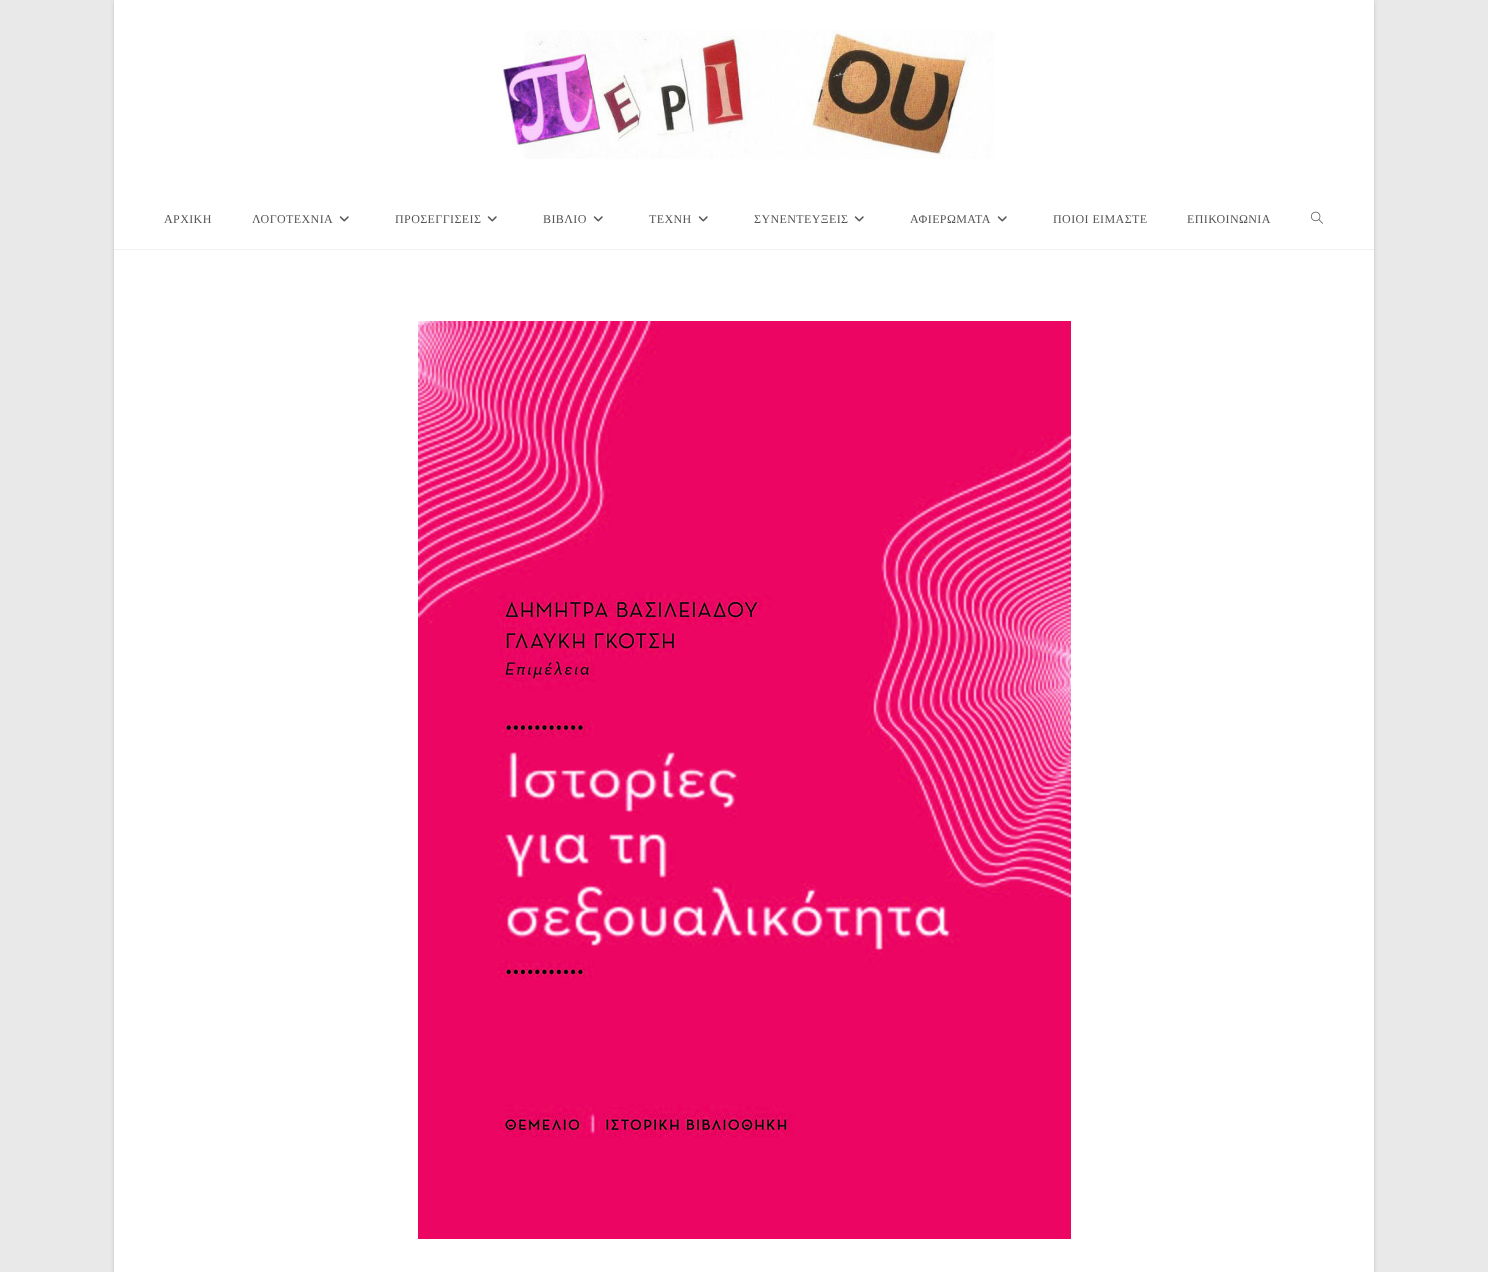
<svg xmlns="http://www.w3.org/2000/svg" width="1488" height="1272">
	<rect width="100%" height="100%" fill="#E9E9E9" />
	<rect x="114" y="1" width="1260" height="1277" fill="#000000" fill-opacity="0.15" filter="blur(2px)" />
	<rect x="114" y="0" width="1260" height="1272" fill="#FFFFFF" />
	<rect x="114" y="249" width="1260" height="1" fill="#F1F1F1" />
	<image x="500" y="30" width="494" height="129" href="assets/img1.png" />
	<g font-family="Tinos" font-size="12" letter-spacing="0.4" fill="#555555">
		<text x="164" y="223">ΑΡΧΙΚΗ</text>
		<text x="252" y="223">ΛΟΓΟΤΕΧΝΙΑ</text>
	</g>
	<image x="339" y="216" width="10" height="6" href="assets/img2.png" />
	<text x="395" y="223" font-family="Tinos" font-size="12" letter-spacing="0.4" fill="#555555">ΠΡΟΣΕΓΓΙΣΕΙΣ</text>
	<image x="487" y="216" width="10" height="6" href="assets/img2.png" />
	<text x="543" y="223" font-family="Tinos" font-size="12" letter-spacing="0.4" fill="#555555">ΒΙΒΛΙΟ</text>
	<image x="593" y="216" width="10" height="6" href="assets/img2.png" />
	<text x="649" y="223" font-family="Tinos" font-size="12" letter-spacing="0.4" fill="#555555">ΤΕΧΝΗ</text>
	<image x="698" y="216" width="10" height="6" href="assets/img2.png" />
	<text x="754" y="223" font-family="Tinos" font-size="12" letter-spacing="0.4" fill="#555555">ΣΥΝΕΝΤΕΥΞΕΙΣ</text>
	<image x="854" y="216" width="10" height="6" href="assets/img2.png" />
	<text x="910" y="223" font-family="Tinos" font-size="12" letter-spacing="0.4" fill="#555555">ΑΦΙΕΡΩΜΑΤΑ</text>
	<image x="997" y="216" width="10" height="6" href="assets/img2.png" />
	<g font-family="Tinos" font-size="12" letter-spacing="0.4" fill="#555555">
		<text x="1053" y="223">ΠΟΙΟΙ ΕΙΜΑΣΤΕ</text>
		<text x="1187" y="223">ΕΠΙΚΟΙΝΩΝΙΑ</text>
	</g>
	<image x="1311" y="211" width="12" height="13" href="assets/img3.png" />
	<image x="418" y="321" width="653" height="918" href="assets/img4.png" />
</svg>
